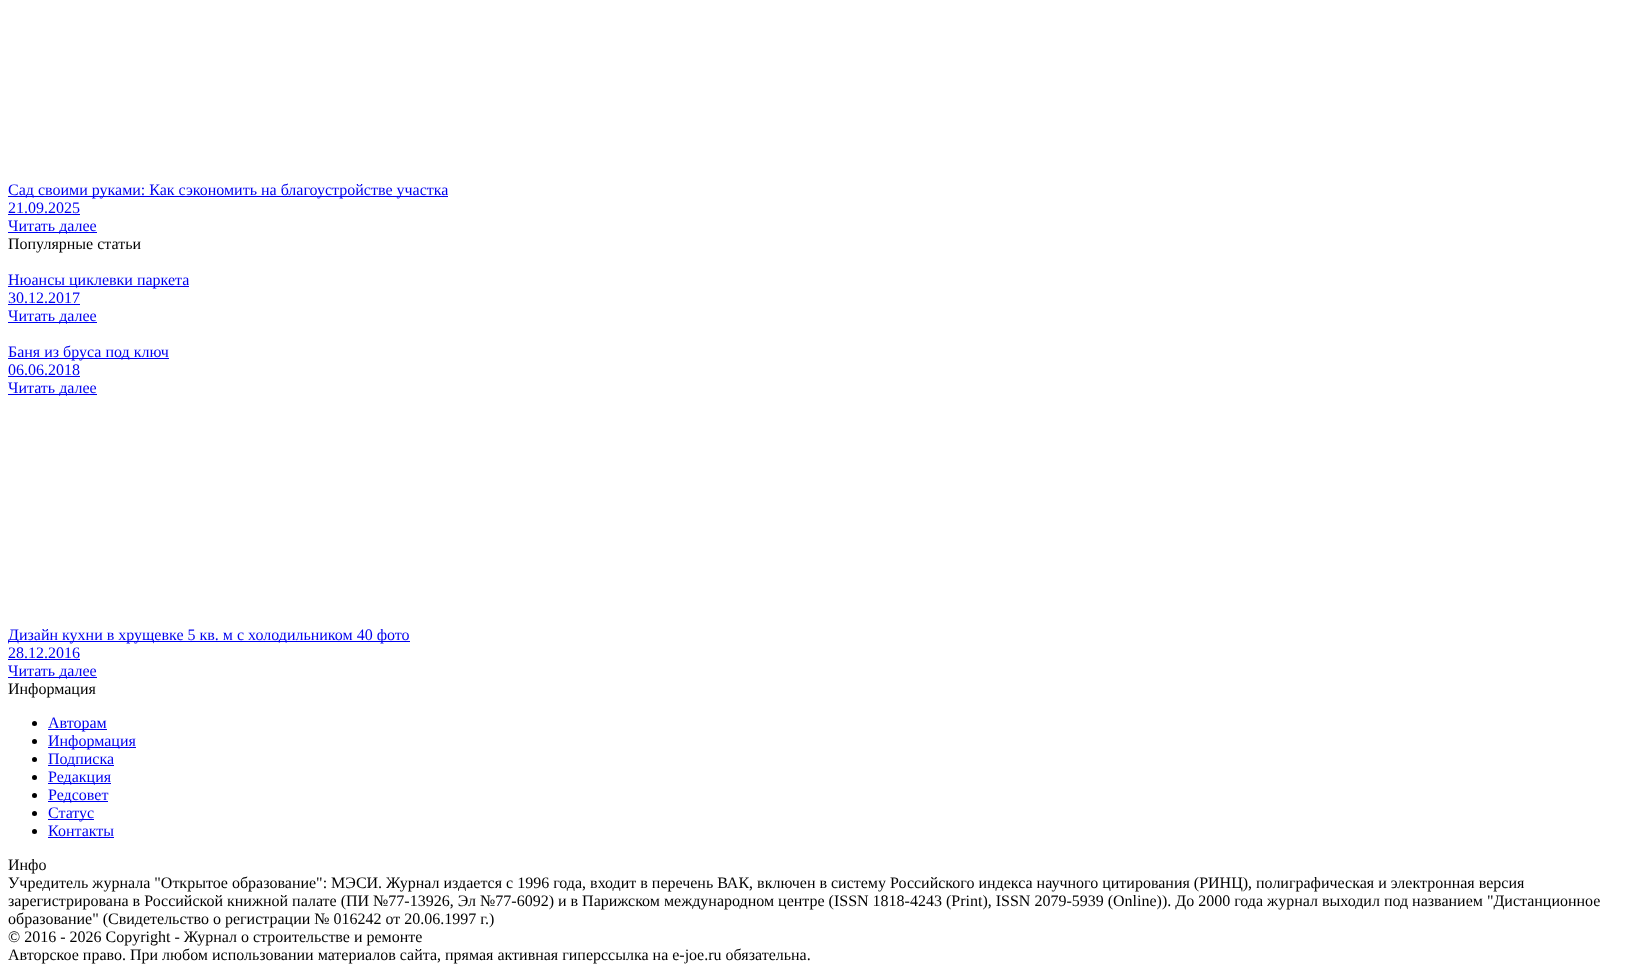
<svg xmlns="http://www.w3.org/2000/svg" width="1637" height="980">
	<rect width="100%" height="100%" fill="#FFFFFF" />
	<rect x="8" y="196" width="440" height="1" fill="#0000EE" />
	<g font-family="Liberation Serif" font-size="16" fill="#0000EE">
		<text x="8" y="195">Сад своими руками: Как сэкономить на благоустройстве участка</text>
		<text x="8" y="213">21.09.2025</text>
	</g>
	<rect x="8" y="214" width="72" height="1" fill="#0000EE" />
	<rect x="8" y="232" width="89" height="1" fill="#0000EE" />
	<text x="8" y="231" font-family="Liberation Serif" font-size="16" fill="#0000EE">Читать далее</text>
	<text x="8" y="249" font-family="Liberation Serif" font-size="16" fill="#000000">Популярные статьи</text>
	<rect x="8" y="286" width="181" height="1" fill="#0000EE" />
	<g font-family="Liberation Serif" font-size="16" fill="#0000EE">
		<text x="8" y="285">Нюансы циклевки паркета</text>
		<text x="8" y="303">30.12.2017</text>
	</g>
	<rect x="8" y="304" width="72" height="1" fill="#0000EE" />
	<rect x="8" y="322" width="89" height="1" fill="#0000EE" />
	<text x="8" y="321" font-family="Liberation Serif" font-size="16" fill="#0000EE">Читать далее</text>
	<rect x="8" y="358" width="161" height="1" fill="#0000EE" />
	<g font-family="Liberation Serif" font-size="16" fill="#0000EE">
		<text x="8" y="357">Баня из бруса под ключ</text>
		<text x="8" y="375">06.06.2018</text>
	</g>
	<rect x="8" y="376" width="72" height="1" fill="#0000EE" />
	<rect x="8" y="394" width="89" height="1" fill="#0000EE" />
	<text x="8" y="393" font-family="Liberation Serif" font-size="16" fill="#0000EE">Читать далее</text>
	<rect x="8" y="641" width="402" height="1" fill="#0000EE" />
	<g font-family="Liberation Serif" font-size="16" fill="#0000EE">
		<text x="8" y="640">Дизайн кухни в хрущевке 5 кв. м с холодильником 40 фото</text>
		<text x="8" y="658">28.12.2016</text>
	</g>
	<rect x="8" y="659" width="72" height="1" fill="#0000EE" />
	<rect x="8" y="677" width="89" height="1" fill="#0000EE" />
	<text x="8" y="676" font-family="Liberation Serif" font-size="16" fill="#0000EE">Читать далее</text>
	<text x="8" y="694" font-family="Liberation Serif" font-size="16" fill="#000000">Информация</text>
	<circle cx="34.5" cy="723.5" r="2.5" fill="#000000" />
	<rect x="48" y="729" width="59" height="1" fill="#0000EE" />
	<text x="48" y="728" font-family="Liberation Serif" font-size="16" fill="#0000EE">Авторам</text>
	<circle cx="34.5" cy="741.5" r="2.5" fill="#000000" />
	<rect x="48" y="747" width="88" height="1" fill="#0000EE" />
	<text x="48" y="746" font-family="Liberation Serif" font-size="16" fill="#0000EE">Информация</text>
	<circle cx="34.5" cy="759.5" r="2.5" fill="#000000" />
	<rect x="48" y="765" width="66" height="1" fill="#0000EE" />
	<text x="48" y="764" font-family="Liberation Serif" font-size="16" fill="#0000EE">Подписка</text>
	<circle cx="34.5" cy="777.5" r="2.5" fill="#000000" />
	<rect x="48" y="783" width="63" height="1" fill="#0000EE" />
	<text x="48" y="782" font-family="Liberation Serif" font-size="16" fill="#0000EE">Редакция</text>
	<circle cx="34.5" cy="795.5" r="2.5" fill="#000000" />
	<rect x="48" y="801" width="60" height="1" fill="#0000EE" />
	<text x="48" y="800" font-family="Liberation Serif" font-size="16" fill="#0000EE">Редсовет</text>
	<circle cx="34.5" cy="813.5" r="2.5" fill="#000000" />
	<rect x="48" y="819" width="46" height="1" fill="#0000EE" />
	<text x="48" y="818" font-family="Liberation Serif" font-size="16" fill="#0000EE">Статус</text>
	<circle cx="34.5" cy="831.5" r="2.5" fill="#000000" />
	<text x="48" y="836" font-family="Liberation Serif" font-size="16" fill="#0000EE">Контакты</text>
	<rect x="48" y="837" width="66" height="1" fill="#0000EE" />
	<g font-family="Liberation Serif" font-size="16" fill="#000000">
		<text x="8" y="870">Инфо</text>
		<text x="8" y="888">Учредитель журнала "Открытое образование": МЭСИ. Журнал издается с 1996 года, входит в перечень ВАК, включен в систему Российского индекса научного цитирования (РИНЦ), полиграфическая и электронная версия</text>
		<text x="8" y="906">зарегистрирована в Российской книжной палате (ПИ №77-13926, Эл №77-6092) и в Парижском международном центре (ISSN 1818-4243 (Print), ISSN 2079-5939 (Online)). До 2000 года журнал выходил под названием "Дистанционное</text>
		<text x="8" y="924">образование" (Свидетельство о регистрации № 016242 от 20.06.1997 г.)</text>
		<text x="8" y="942">© 2016 - 2026 Copyright - Журнал о строительстве и ремонте</text>
		<text x="8" y="960">Авторское право. При любом использовании материалов сайта, прямая активная гиперссылка на e-joe.ru обязательна.</text>
	</g>
</svg>
